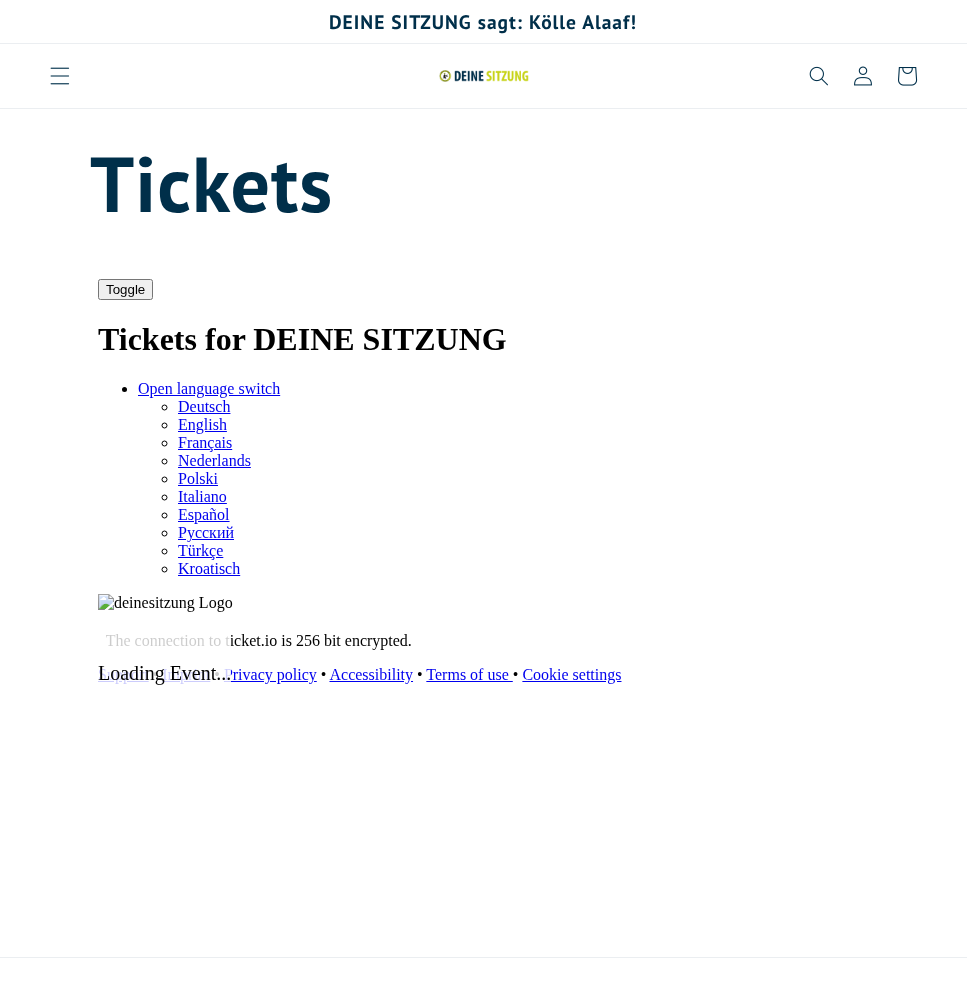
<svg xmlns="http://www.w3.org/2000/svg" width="967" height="991">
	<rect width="100%" height="100%" fill="#FFFFFF" />
	<rect x="0" y="43" width="967" height="1" fill="#EBEEF1" />
	<text x="329" y="29" font-family="PT Sans" font-size="19.5" font-weight="700" letter-spacing="1" fill="#002F4A">DEINE SITZUNG sagt: Kölle Alaaf!</text>
	<rect x="0" y="108" width="967" height="1" fill="#EBEEF1" />
	<image x="50" y="67" width="20" height="18" href="assets/img1.png" />
	<image x="439" y="70" width="90" height="12" href="assets/img2.png" />
	<image x="809" y="66" width="19" height="20" href="assets/img3.png" />
	<image x="854" y="66" width="18" height="20" href="assets/img4.png" />
	<image x="898" y="67" width="20" height="19" href="assets/img5.png" />
	<text x="90" y="212" font-family="PT Sans" font-size="78" font-weight="700" letter-spacing="1" fill="#002F4A">Tickets</text>
	<image x="98" y="279" width="524" height="406" href="assets/img6.png" />
	<rect x="0" y="957" width="967" height="1" fill="#EBEEF1" />
</svg>
